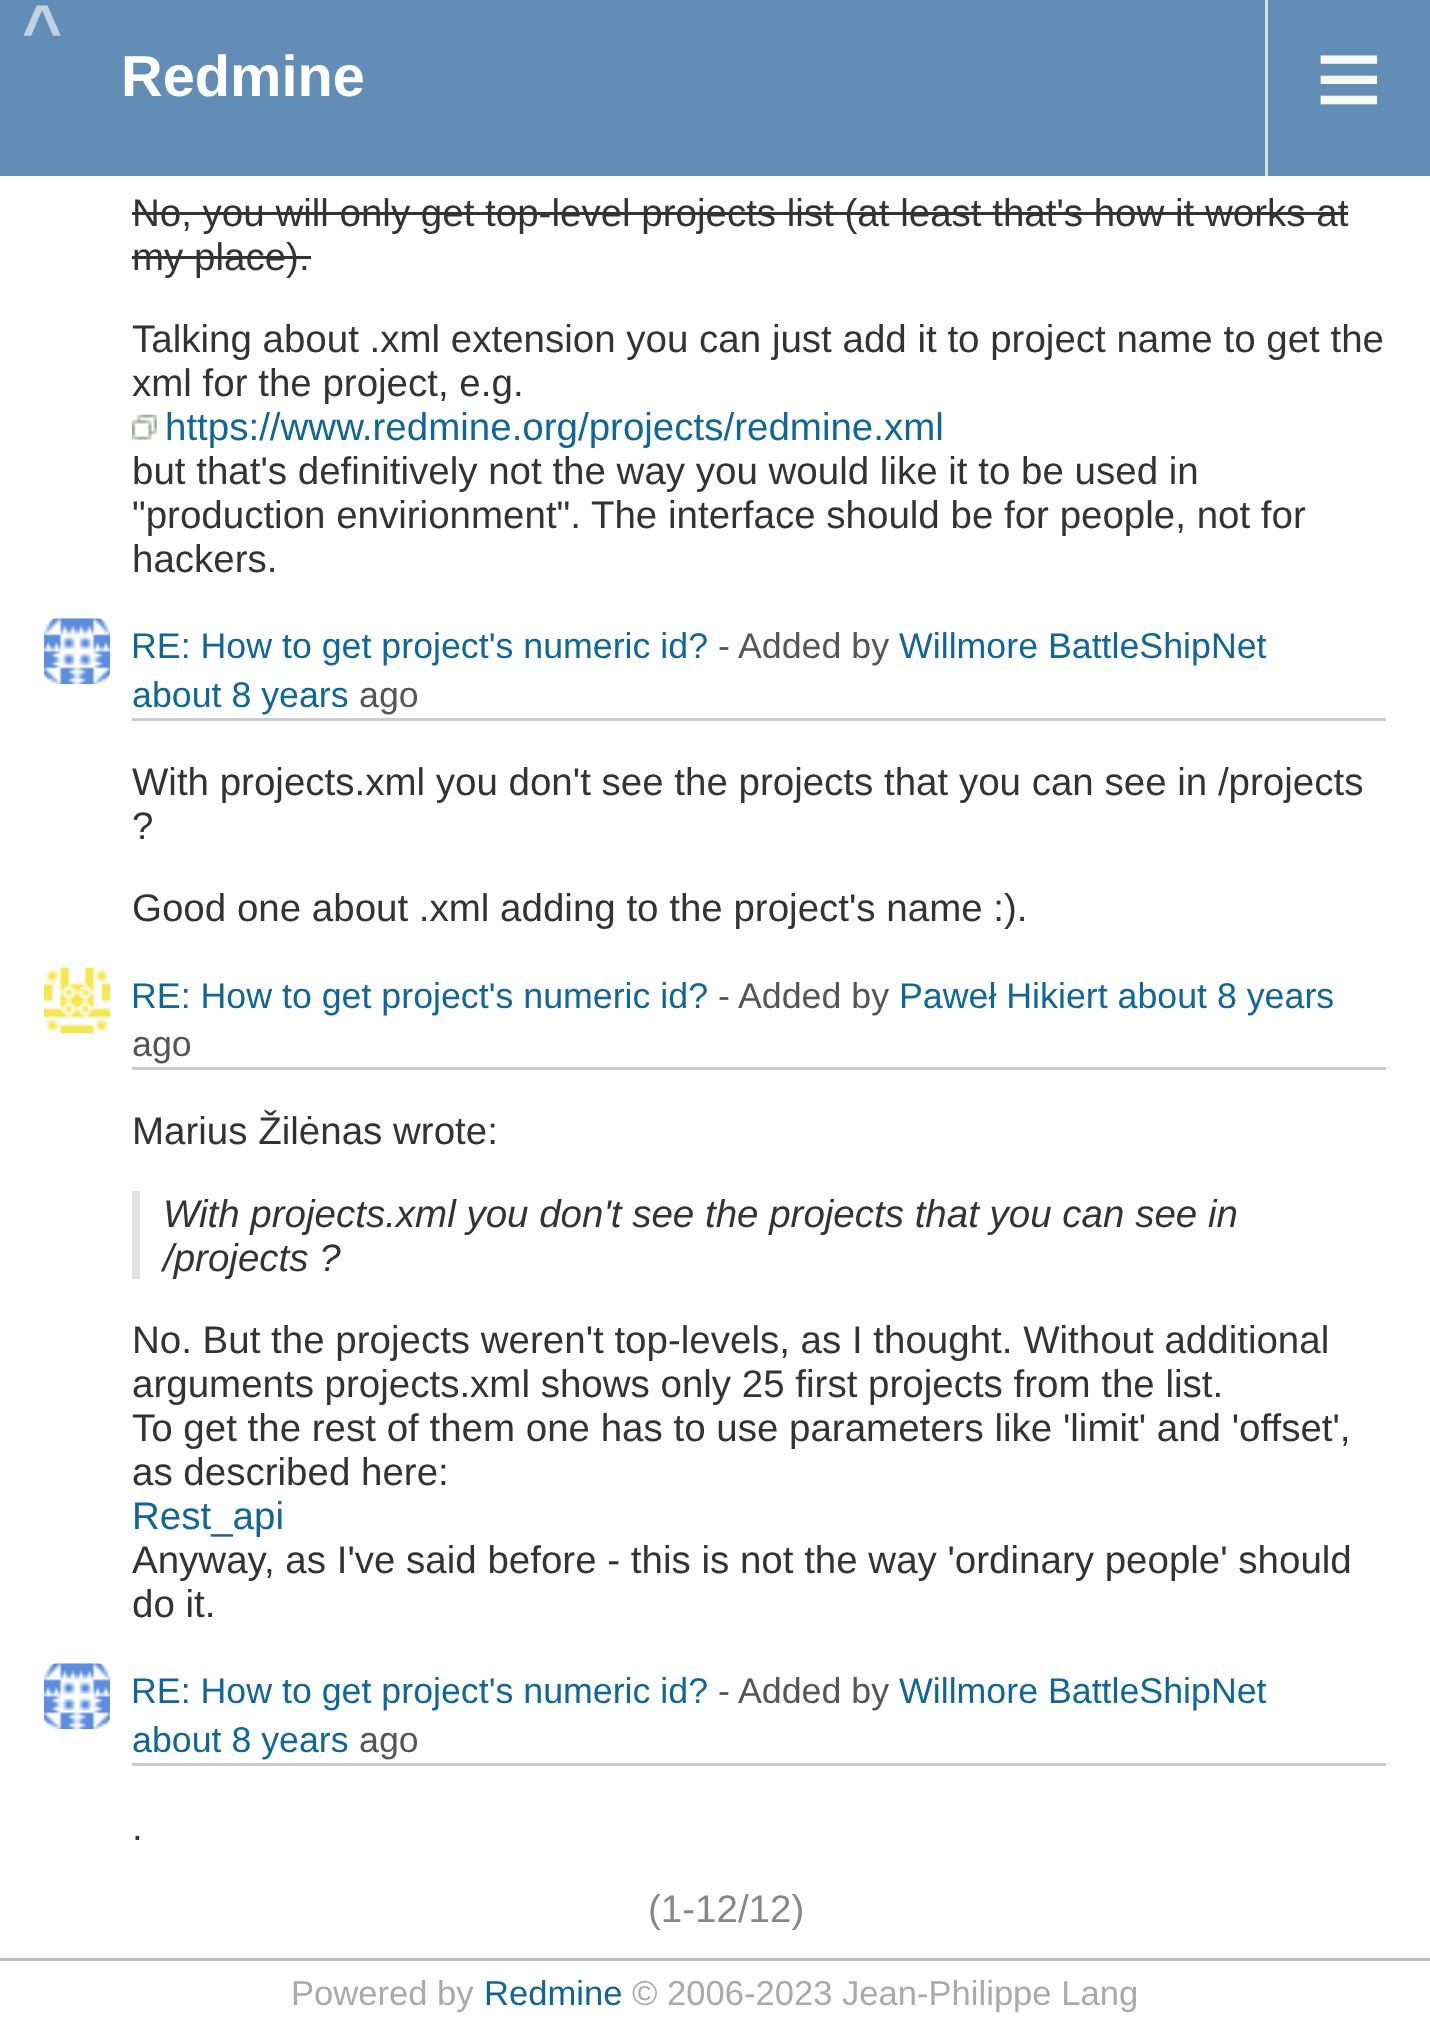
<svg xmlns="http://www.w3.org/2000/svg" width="1430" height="2026">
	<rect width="100%" height="100%" fill="#FFFFFF" />
	<rect x="0" y="0" width="1430" height="176" fill="#628DB6" />
	<text x="22" y="53" font-family="Liberation Sans" font-size="69" font-weight="700" letter-spacing="10" fill="#C0D1E2">^</text>
	<text x="121" y="96" font-family="Liberation Sans" font-size="57.75" font-weight="700" fill="#FFFFFF">Redmine</text>
	<rect x="1265" y="0" width="3" height="176" fill="#DDDDDD" />
	<text x="1315" y="118" font-family="Liberation Sans" font-size="116" fill="#F8F8F8">≡</text>
	<text x="132" y="226" font-family="Liberation Sans" font-size="38.5" fill="#333333">No, you will only get top-level projects list (at least that's how it works at</text>
	<rect x="132" y="212" width="1216" height="3" fill="#333333" />
	<text x="132" y="270" font-family="Liberation Sans" font-size="38.5" fill="#333333">my place).</text>
	<rect x="132" y="256" width="179" height="3" fill="#333333" />
	<g font-family="Liberation Sans" font-size="38.5" fill="#333333">
		<text x="132" y="352">Talking about .xml extension you can just add it to project name to get the</text>
		<text x="132" y="396">xml for the project, e.g.</text>
	</g>
	<image x="132" y="414" width="25" height="26" href="assets/img1.png" />
	<text x="165" y="440" font-family="Liberation Sans" font-size="38.5" fill="#116699">https://www.redmine.org/projects/redmine.xml</text>
	<g font-family="Liberation Sans" font-size="38.5" fill="#333333">
		<text x="132" y="484">but that's definitively not the way you would like it to be used in</text>
		<text x="132" y="528">"production envirionment". The interface should be for people, not for</text>
		<text x="132" y="572">hackers.</text>
	</g>
	<rect x="132" y="718" width="1254" height="3" fill="#CCCCCC" />
	<image x="44" y="618" width="66" height="67" href="assets/img2.png" />
	<text x="131" y="658" font-family="Liberation Sans" font-size="35.75" fill="#116699">RE: How to get project's numeric id?</text>
	<g font-family="Liberation Sans" font-size="35.75" fill="#555555">
		<text x="718" y="658">-</text>
		<text x="738" y="658">Added by</text>
	</g>
	<g font-family="Liberation Sans" font-size="35.75" fill="#116699">
		<text x="899" y="658">Willmore BattleShipNet</text>
		<text x="132" y="707">about 8 years</text>
	</g>
	<text x="359" y="707" font-family="Liberation Sans" font-size="35.75" fill="#555555">ago</text>
	<g font-family="Liberation Sans" font-size="38.5" fill="#333333">
		<text x="132" y="795">With projects.xml you don't see the projects that you can see in /projects</text>
		<text x="132" y="839">?</text>
		<text x="132" y="921">Good one about .xml adding to the project's name :).</text>
	</g>
	<rect x="132" y="1067" width="1254" height="3" fill="#CCCCCC" />
	<image x="44" y="967" width="66" height="67" href="assets/img3.png" />
	<text x="131" y="1008" font-family="Liberation Sans" font-size="35.75" fill="#116699">RE: How to get project's numeric id?</text>
	<g font-family="Liberation Sans" font-size="35.75" fill="#555555">
		<text x="718" y="1008">-</text>
		<text x="738" y="1008">Added by</text>
	</g>
	<text x="899" y="1008" font-family="Liberation Sans" font-size="35.75" fill="#116699">Paweł Hikiert about 8 years</text>
	<text x="132" y="1056" font-family="Liberation Sans" font-size="35.75" fill="#555555">ago</text>
	<text x="132" y="1144" font-family="Liberation Sans" font-size="38.5" fill="#333333">Marius Žilėnas wrote:</text>
	<rect x="132" y="1191" width="8" height="88" fill="#E0E0E0" />
	<g font-family="Liberation Sans" font-size="38.5" font-style="italic" fill="#333333">
		<text x="163" y="1227">With projects.xml you don't see the projects that you can see in</text>
		<text x="163" y="1271">/projects ?</text>
	</g>
	<g font-family="Liberation Sans" font-size="38.5" fill="#333333">
		<text x="132" y="1353">No. But the projects weren't top-levels, as I thought. Without additional</text>
		<text x="132" y="1397">arguments projects.xml shows only 25 first projects from the list.</text>
		<text x="132" y="1441">To get the rest of them one has to use parameters like 'limit' and 'offset',</text>
		<text x="132" y="1485">as described here:</text>
	</g>
	<text x="132" y="1529" font-family="Liberation Sans" font-size="38.5" fill="#116699">Rest_api</text>
	<g font-family="Liberation Sans" font-size="38.5" fill="#333333">
		<text x="132" y="1573">Anyway, as I've said before - this is not the way 'ordinary people' should</text>
		<text x="132" y="1617">do it.</text>
	</g>
	<rect x="132" y="1763" width="1254" height="3" fill="#CCCCCC" />
	<image x="44" y="1663" width="66" height="67" href="assets/img4.png" />
	<text x="131" y="1703" font-family="Liberation Sans" font-size="35.75" fill="#116699">RE: How to get project's numeric id?</text>
	<g font-family="Liberation Sans" font-size="35.75" fill="#555555">
		<text x="718" y="1703">-</text>
		<text x="738" y="1703">Added by</text>
	</g>
	<g font-family="Liberation Sans" font-size="35.75" fill="#116699">
		<text x="899" y="1703">Willmore BattleShipNet</text>
		<text x="132" y="1752">about 8 years</text>
	</g>
	<text x="359" y="1752" font-family="Liberation Sans" font-size="35.75" fill="#555555">ago</text>
	<text x="132" y="1840" font-family="Liberation Sans" font-size="38.5" fill="#333333">.</text>
	<text x="648" y="1922" font-family="Liberation Sans" font-size="38.5" fill="#888888">(1-12/12)</text>
	<rect x="0" y="1958" width="1430" height="3" fill="#BBBBBB" />
	<text x="291" y="2005" font-family="Liberation Sans" font-size="34.6" fill="#AAAAAA">Powered by</text>
	<text x="484" y="2005" font-family="Liberation Sans" font-size="34.6" fill="#116699">Redmine</text>
	<text x="632" y="2005" font-family="Liberation Sans" font-size="34.6" fill="#AAAAAA">© 2006-2023 Jean-Philippe Lang</text>
</svg>
